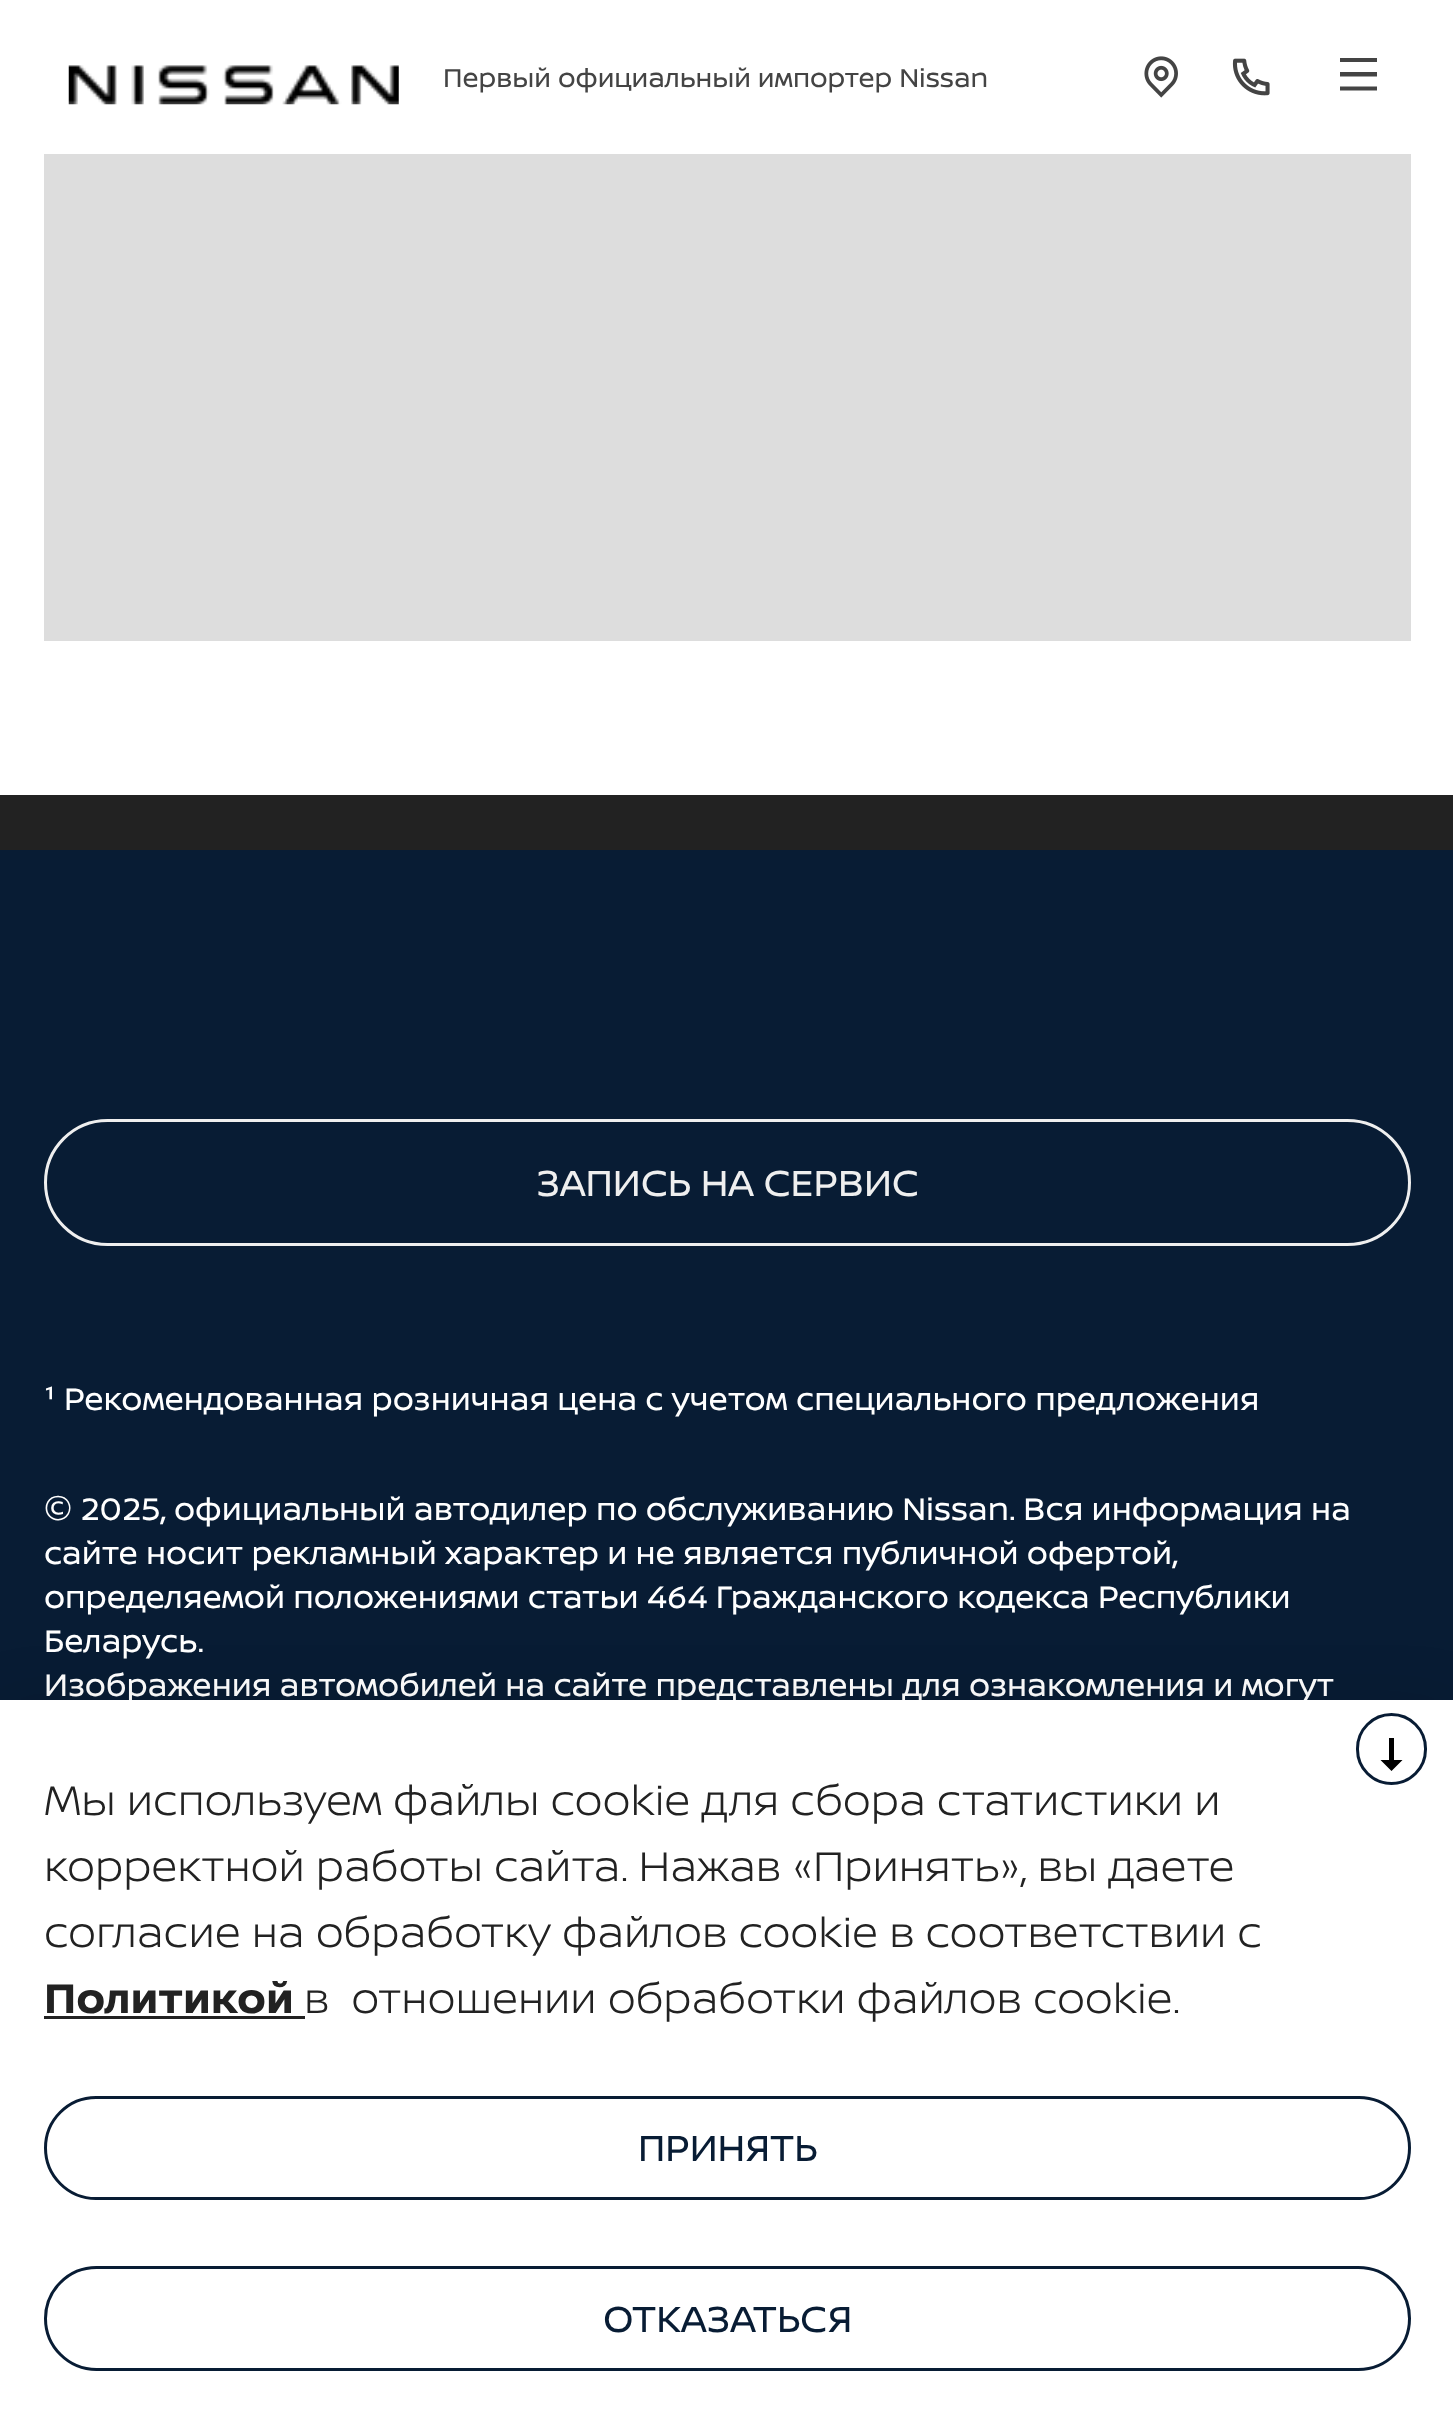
<svg xmlns="http://www.w3.org/2000/svg" width="1453" height="2435">
	<rect width="100%" height="100%" fill="#FFFFFF" />
	<image x="68" y="65" width="331" height="40" href="assets/img1.png" />
	<text x="443" y="87" font-family="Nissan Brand" font-size="27.5" fill="#444444">Первый официальный импортер Nissan</text>
	<image x="1144" y="56" width="34" height="42" href="assets/img2.png" />
	<image x="1232" y="58" width="38" height="38" href="assets/img3.png" />
	<path d="M1340 58H1377V62H1340ZM1340 72H1377V76.5H1340ZM1340 86.5H1377V90.5H1340Z" fill="#444444" fill-rule="evenodd" />
	<rect x="44" y="154" width="1367" height="487" fill="#DDDDDD" />
	<rect x="0" y="795" width="1453" height="55" fill="#222222" />
	<rect x="0" y="850" width="1453" height="850" fill="#081C34" />
	<rect x="45.5" y="1120.5" width="1364" height="124" rx="62" fill="none" stroke="#EFEFEF" stroke-width="3" />
	<text x="536" y="1196" font-family="Nissan Brand" font-size="38.5" fill="#EFEFEF">ЗАПИСЬ НА СЕРВИС</text>
	<text x="44" y="1410" font-family="Roboto" font-size="33" fill="#FFFFFF">¹</text>
	<g font-family="Nissan Brand" font-size="33" fill="#FFFFFF">
		<text x="64" y="1410">Рекомендованная розничная цена с учетом специального предложения</text>
		<text x="44" y="1520">© 2025, официальный автодилер по обслуживанию Nissan. Вся информация на</text>
		<text x="44" y="1564">сайте носит рекламный характер и не является публичной офертой,</text>
		<text x="44" y="1608">определяемой положениями статьи 464 Гражданского кодекса Республики</text>
		<text x="44" y="1652">Беларусь.</text>
		<text x="44" y="1696">Изображения автомобилей на сайте представлены для ознакомления и могут</text>
	</g>
	<rect x="0" y="1711" width="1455" height="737" fill="#000000" fill-opacity="0.14" filter="blur(33px)" />
	<rect x="0" y="1700" width="1453" height="735" fill="#FFFFFF" />
	<rect x="1357.5" y="1714.5" width="68" height="69" rx="34" fill="none" stroke="#081C34" stroke-width="3" />
	<path d="M1391.5 1771L1402.5 1760H1394V1738H1389V1760H1380.5Z" fill="#000000" />
	<g font-family="Nissan Brand" font-size="44" font-weight="300" fill="#222222">
		<text x="44" y="1815">Мы используем файлы cookie для сбора статистики и</text>
		<text x="44" y="1881">корректной работы сайта. Нажав «Принять», вы даете</text>
		<text x="44" y="1947">согласие на обработку файлов cookie в соответствии с</text>
	</g>
	<text x="44" y="2013" font-family="Nissan Brand" font-size="44" font-weight="700" fill="#222222">Политикой</text>
	<rect x="44" y="2016" width="261" height="3" fill="#222222" />
	<text x="304" y="2013" font-family="Nissan Brand" font-size="44" font-weight="300" fill="#222222" xml:space="preserve">в  отношении обработки файлов cookie.</text>
	<rect x="45.5" y="2097.5" width="1364" height="101" rx="50.5" fill="none" stroke="#081C34" stroke-width="3" />
	<text x="638" y="2161" font-family="Nissan Brand" font-size="38.5" fill="#081C34">ПРИНЯТЬ</text>
	<rect x="45.5" y="2267.5" width="1364" height="102" rx="51" fill="none" stroke="#081C34" stroke-width="3" />
	<text x="603" y="2332" font-family="Nissan Brand" font-size="38.5" fill="#081C34">ОТКАЗАТЬСЯ</text>
</svg>
